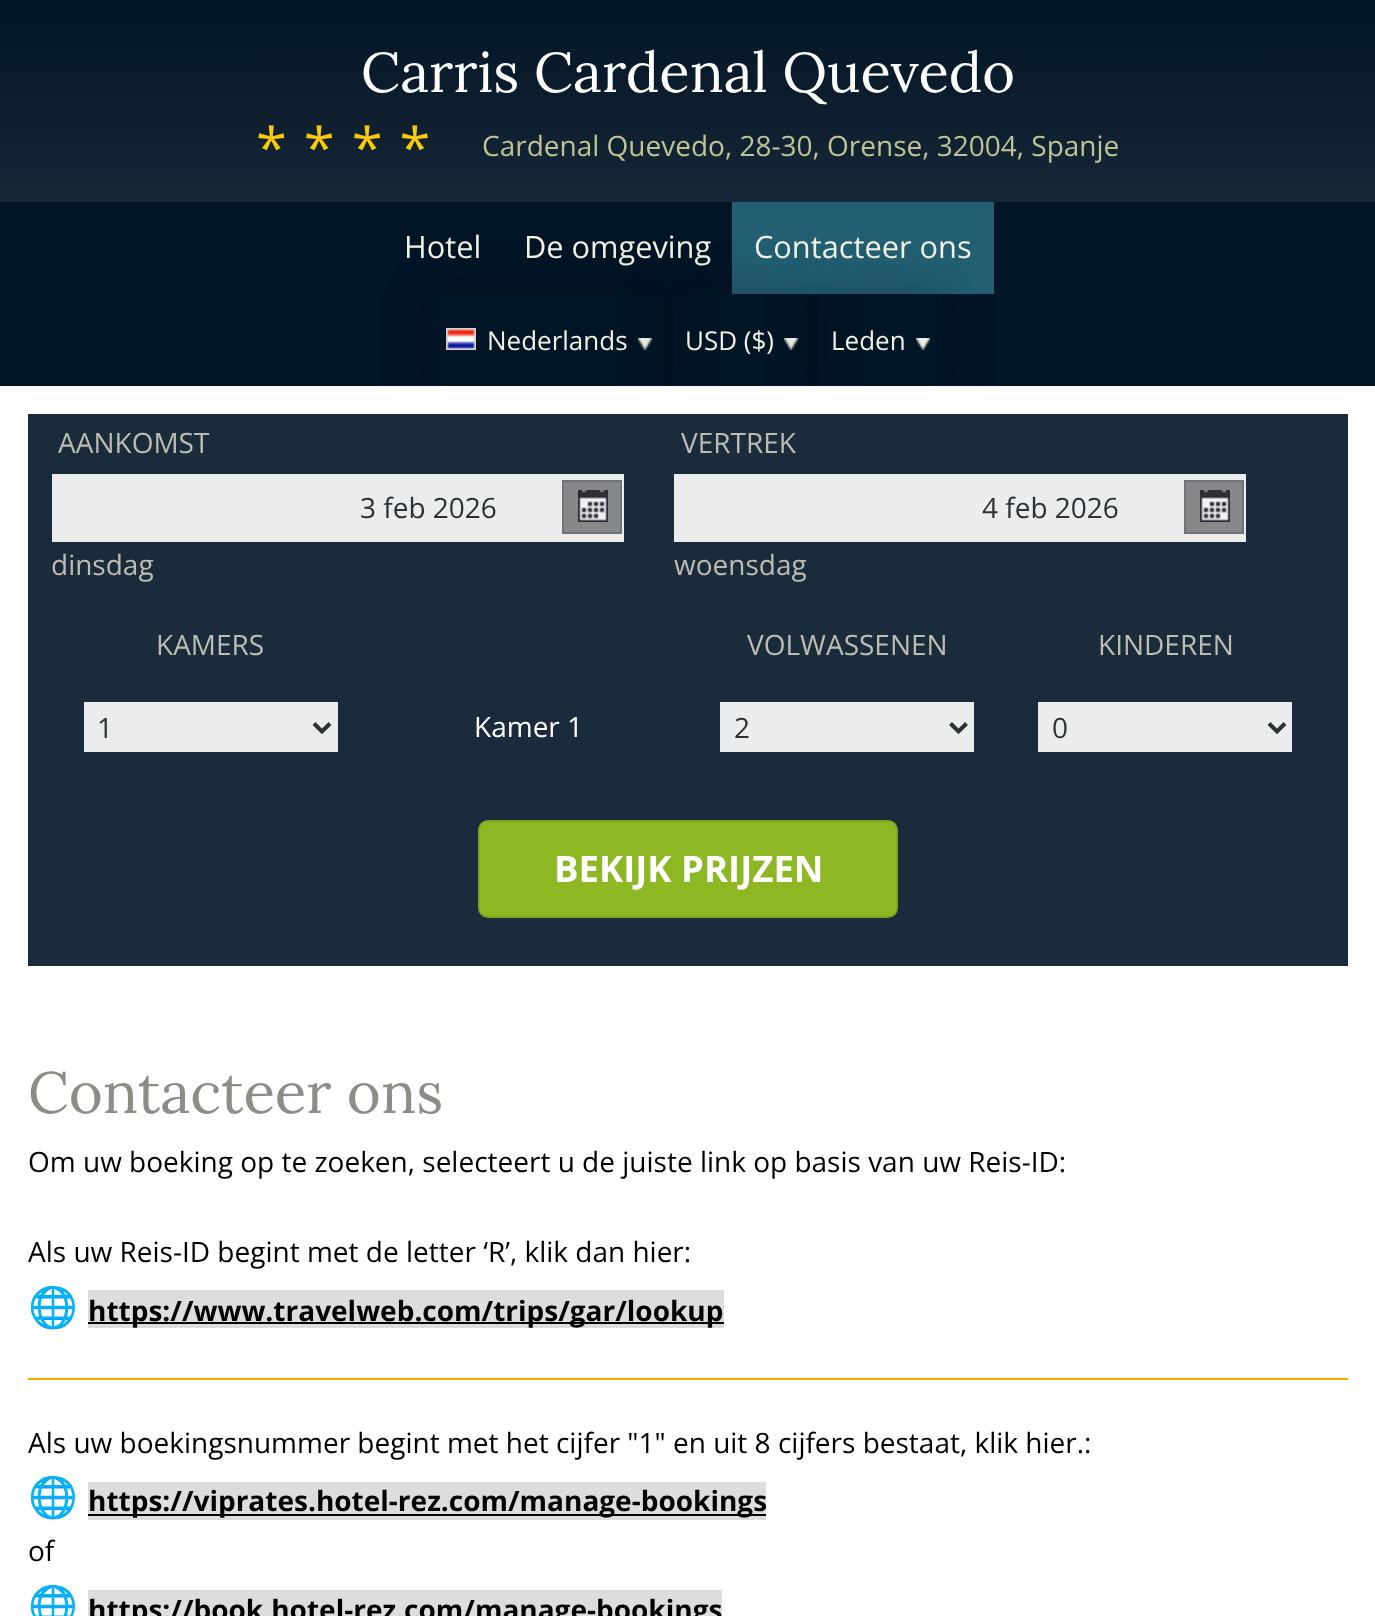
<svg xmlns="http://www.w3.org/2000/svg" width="1375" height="1616">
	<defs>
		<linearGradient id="g1" gradientUnits="userSpaceOnUse" x1="688" y1="0" x2="688" y2="202"><stop offset="0" stop-color="#021526" /><stop offset="1" stop-color="#162736" /></linearGradient>
		<clipPath id="clip1"><path d="M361 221H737V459H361ZM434 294H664V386H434Z" clip-rule="evenodd" /></clipPath>
		<clipPath id="clip2"><path d="M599 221H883V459H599ZM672 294H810V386H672Z" clip-rule="evenodd" /></clipPath>
		<clipPath id="clip3"><path d="M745 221H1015V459H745ZM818 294H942V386H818Z" clip-rule="evenodd" /></clipPath>
	</defs>
	<rect width="100%" height="100%" fill="#FFFFFF" />
	<rect x="0" y="0" width="1375" height="202" fill="url(#g1)" />
	<text x="361" y="92" font-family="Lora" font-size="56" fill="#FFFFFF">Carris Cardenal Quevedo</text>
	<text x="256" y="168" font-family="Open Sans" font-size="56" letter-spacing="17" fill="#F9CA09">****</text>
	<text x="482" y="156" font-family="Open Sans" font-size="28" fill="#BFC295">Cardenal Quevedo, 28-30, Orense, 32004, Spanje</text>
	<rect x="0" y="202" width="1375" height="184" fill="#021526" />
	<g font-family="Open Sans" font-size="30.75" fill="#F2F2E3">
		<text x="404" y="258">Hotel</text>
		<text x="524" y="258">De omgeving</text>
	</g>
	<rect x="732" y="202" width="262" height="92" fill="#225F72" />
	<text x="754" y="258" font-family="Open Sans" font-size="30.75" fill="#F2F2E3">Contacteer ons</text>
	<g clip-path="url(#clip1)">
		<rect x="434" y="294" width="230" height="92" fill="#000000" fill-opacity="0.27" filter="blur(24px)" />
	</g>
	<image x="446" y="328" width="30" height="22" href="assets/img1.png" />
	<text x="487" y="350" font-family="Open Sans" font-size="26" fill="#F2F2E3">Nederlands</text>
	<image x="638" y="338" width="14" height="12" href="assets/img2.png" />
	<g clip-path="url(#clip2)">
		<rect x="672" y="294" width="138" height="92" fill="#000000" fill-opacity="0.27" filter="blur(24px)" />
	</g>
	<rect x="672" y="312" width="5" height="56" fill="#021526" fill-opacity="0.9" />
	<text x="685" y="350" font-family="Open Sans" font-size="26" fill="#F2F2E3">USD ($)</text>
	<image x="784" y="338" width="14" height="12" href="assets/img2.png" />
	<g clip-path="url(#clip3)">
		<rect x="818" y="294" width="124" height="92" fill="#000000" fill-opacity="0.27" filter="blur(24px)" />
	</g>
	<rect x="818" y="312" width="5" height="56" fill="#021526" fill-opacity="0.9" />
	<text x="831" y="350" font-family="Open Sans" font-size="26" fill="#F2F2E3">Leden</text>
	<image x="916" y="338" width="14" height="12" href="assets/img2.png" />
	<rect x="400" y="386" width="576" height="43" fill="#FFFFFF" />
	<rect x="28" y="414" width="1320" height="552" fill="#1A2C3B" />
	<text x="58" y="453" font-family="Open Sans" font-size="28" fill="#BEBCB2">AANKOMST</text>
	<rect x="52" y="474" width="572" height="68" fill="#EBECED" />
	<rect x="564" y="482" width="56" height="50" fill="#868788" />
	<image x="578" y="490" width="30" height="32" href="assets/img3.png" />
	<rect x="563" y="481" width="58" height="52" fill="none" stroke="#6E747A" stroke-width="2" />
	<text x="360" y="518" font-family="Open Sans" font-size="28" fill="#2A3235">3 feb 2026</text>
	<g font-family="Open Sans" font-size="28" fill="#BEBCB2">
		<text x="51" y="575">dinsdag</text>
		<text x="681" y="453">VERTREK</text>
	</g>
	<rect x="674" y="474" width="572" height="68" fill="#EBECED" />
	<rect x="1186" y="482" width="56" height="50" fill="#868788" />
	<image x="1200" y="490" width="30" height="32" href="assets/img3.png" />
	<rect x="1185" y="481" width="58" height="52" fill="none" stroke="#6E747A" stroke-width="2" />
	<text x="982" y="518" font-family="Open Sans" font-size="28" fill="#2A3235">4 feb 2026</text>
	<g font-family="Open Sans" font-size="28" fill="#BEBCB2">
		<text x="674" y="575">woensdag</text>
		<text x="156" y="655">KAMERS</text>
		<text x="747" y="655">VOLWASSENEN</text>
		<text x="1098" y="655">KINDEREN</text>
	</g>
	<rect x="84" y="702" width="254" height="50" fill="#EBECED" />
	<path d="M314 723.5L322 731.5L330 723.5" fill="none" stroke="#2A3235" stroke-width="4" />
	<text x="97" y="738" font-family="Open Sans" font-size="28" fill="#2A3235">1</text>
	<text x="474" y="737" font-family="Open Sans" font-size="28" fill="#FFFFFF">Kamer 1</text>
	<rect x="720" y="702" width="254" height="50" fill="#EBECED" />
	<path d="M950.5 723.5L958.5 731.5L966.5 723.5" fill="none" stroke="#2A3235" stroke-width="4" />
	<text x="734" y="738" font-family="Open Sans" font-size="28" fill="#2A3235">2</text>
	<rect x="1038" y="702" width="254" height="50" fill="#EBECED" />
	<path d="M1269 723.5L1277 731.5L1285 723.5" fill="none" stroke="#2A3235" stroke-width="4" />
	<text x="1052" y="738" font-family="Open Sans" font-size="28" fill="#2A3235">0</text>
	<rect x="479" y="821" width="418" height="96" rx="9" fill="#8EB724" stroke="#80A51E" stroke-width="2" />
	<text x="554" y="882" font-family="Open Sans" font-size="36.5" font-weight="700" fill="#FFFFFF">BEKIJK PRIJZEN</text>
	<text x="28" y="1113" font-family="Lora" font-size="58.25" fill="#8E8C86">Contacteer ons</text>
	<g font-family="Open Sans" font-size="28" fill="#000000">
		<text x="28" y="1172">Om uw boeking op te zoeken, selecteert u de juiste link op basis van uw Reis-ID:</text>
		<text x="28" y="1262">Als uw Reis-ID begint met de letter ‘R’, klik dan hier:</text>
	</g>
	<text x="28" y="1321" font-family="Noto Color Emoji" font-size="40" fill="#000000">🌐</text>
	<rect x="88" y="1290" width="636" height="38" fill="#DDDDDD" />
	<rect x="88" y="1322" width="636" height="2" fill="#000000" />
	<text x="88" y="1321" font-family="Open Sans" font-size="28" font-weight="700" fill="#000000">https://www.travelweb.com/trips/gar/lookup</text>
	<rect x="28" y="1378" width="1320" height="2" fill="#FFA500" />
	<text x="28" y="1453" font-family="Open Sans" font-size="28" fill="#000000">Als uw boekingsnummer begint met het cijfer "1" en uit 8 cijfers bestaat, klik hier.:</text>
	<text x="28" y="1511" font-family="Noto Color Emoji" font-size="40" fill="#000000">🌐</text>
	<rect x="88" y="1482" width="678" height="38" fill="#DDDDDD" />
	<rect x="88" y="1514" width="678" height="2" fill="#000000" />
	<text x="88" y="1511" font-family="Open Sans" font-size="28" font-weight="700" fill="#000000">https://viprates.hotel-rez.com/manage-bookings</text>
	<text x="28" y="1561" font-family="Open Sans" font-size="28" fill="#000000">of</text>
	<text x="28" y="1620" font-family="Noto Color Emoji" font-size="40" fill="#000000">🌐</text>
	<rect x="88" y="1590" width="634" height="26" fill="#DDDDDD" />
	<text x="88" y="1620" font-family="Open Sans" font-size="28" font-weight="700" fill="#000000">https://book.hotel-rez.com/manage-bookings</text>
</svg>
